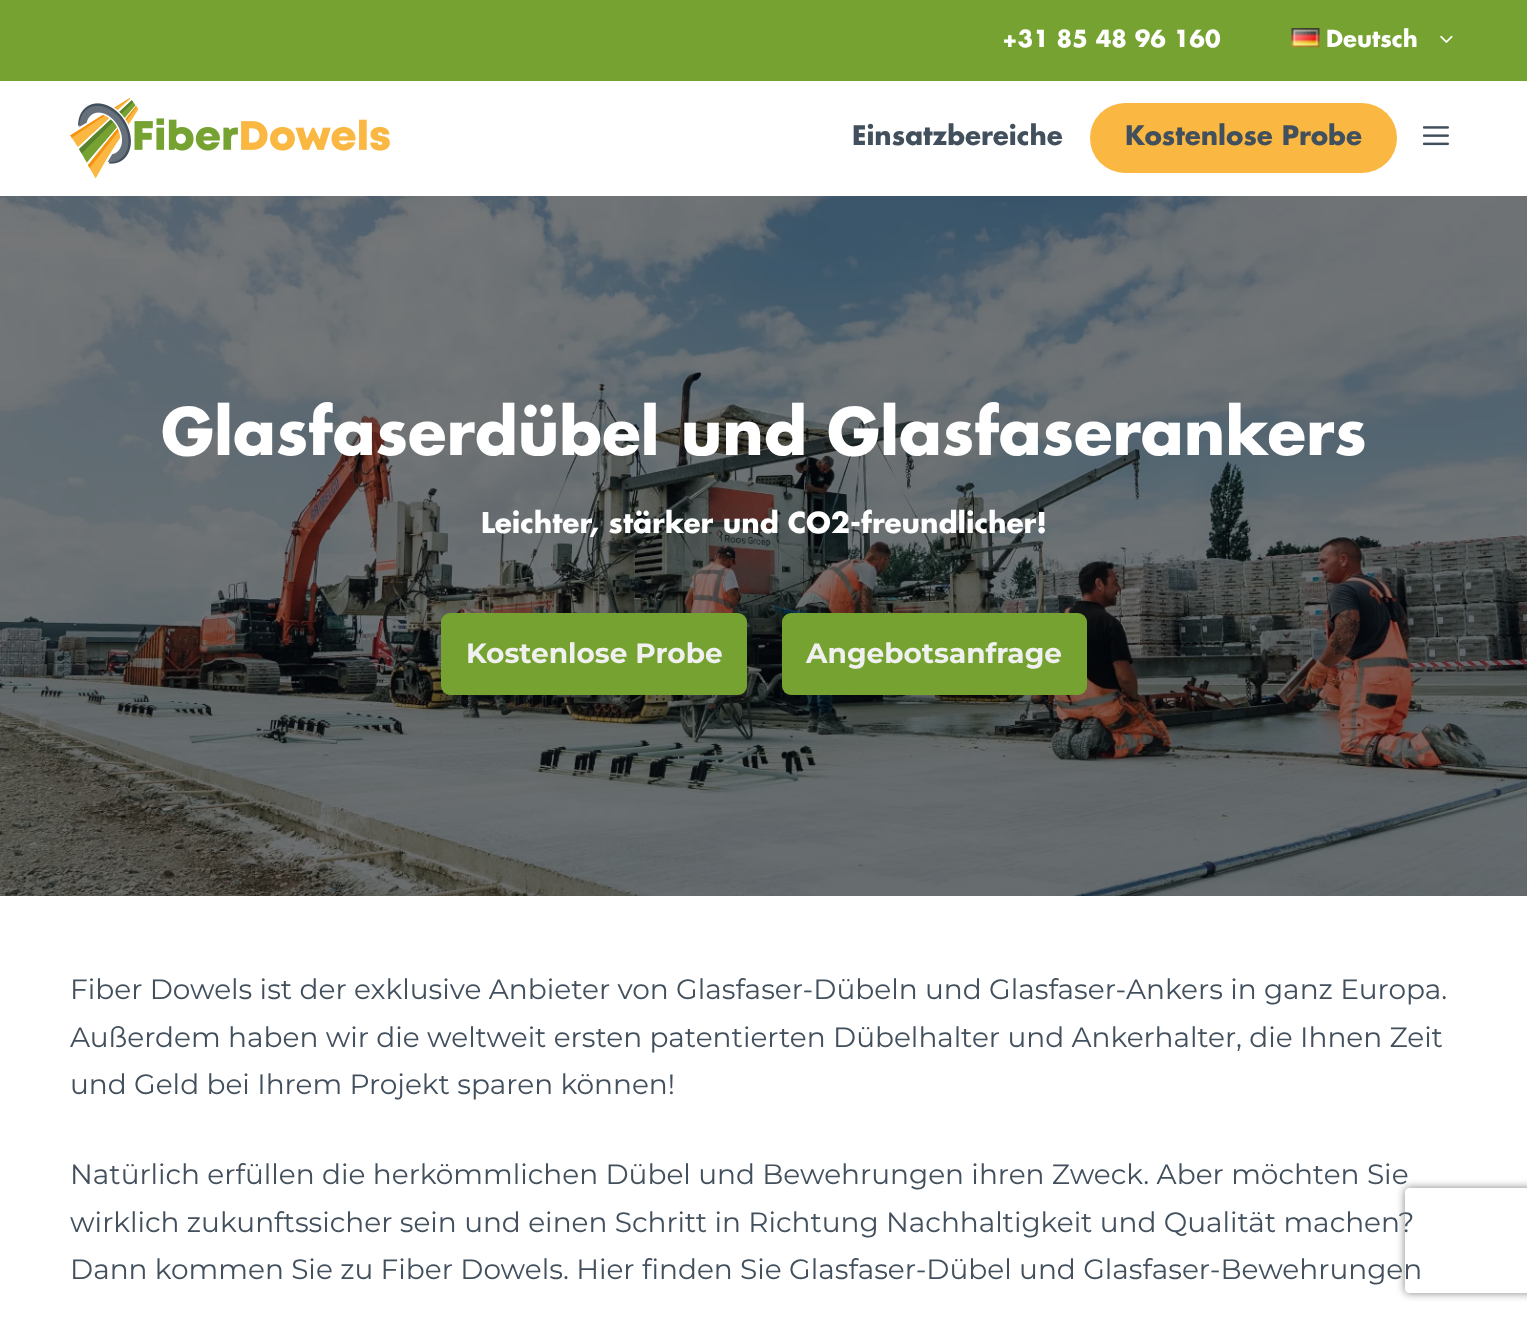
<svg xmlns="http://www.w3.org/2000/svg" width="1527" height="1317">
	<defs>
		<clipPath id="clip1"><path d="M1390 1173H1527V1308H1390ZM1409 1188H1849C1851 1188 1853 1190 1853 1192V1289C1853 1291 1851 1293 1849 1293H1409C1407 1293 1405 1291 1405 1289V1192C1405 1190 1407 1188 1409 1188Z" clip-rule="evenodd" /></clipPath>
	</defs>
	<rect width="100%" height="100%" fill="#FFFFFF" />
	<rect x="0" y="0" width="1527" height="81" fill="#75A231" />
	<text x="1002" y="47" font-family="Futura" font-size="22.75" font-weight="700" fill="#FFFFFF">+31 85 48 96 160</text>
	<image x="1291" y="28" width="29" height="20" href="assets/img1.png" />
	<text x="1326" y="47" font-family="Futura" font-size="22.75" font-weight="700" fill="#FFFFFF">Deutsch</text>
	<image x="1440" y="35" width="13" height="8" href="assets/img2.png" />
	<image x="70" y="98" width="320" height="81" href="assets/img3.png" />
	<text x="852" y="145" font-family="Futura" font-size="26.25" font-weight="700" fill="#424F5C">Einsatzbereiche</text>
	<rect x="1090" y="103" width="307" height="70" rx="35" fill="#FAB741" />
	<text x="1125" y="145" font-family="Futura" font-size="26.25" font-weight="700" fill="#424F5C">Kostenlose Probe</text>
	<image x="1423" y="126" width="26" height="20" href="assets/img4.png" />
	<rect x="0" y="196" width="1527" height="700" fill="#000000" />
	<image x="0" y="196" width="1527" height="700" href="assets/img5.png" />
	<text x="161" y="455" font-family="Futura" font-size="63" font-weight="700" fill="#FFFFFF">Glasfaserdübel und Glasfaserankers</text>
	<text x="481" y="533" font-family="Futura" font-size="28" font-weight="700" fill="#FFFFFF">Leichter, stärker und CO2-freundlicher!</text>
	<rect x="441" y="613" width="306" height="82" rx="9" fill="#75A231" />
	<text x="466" y="663" font-family="Montserrat" font-size="28" font-weight="700" fill="#F0F0F0">Kostenlose Probe</text>
	<rect x="782" y="613" width="305" height="82" rx="9" fill="#75A231" />
	<text x="806" y="663" font-family="Montserrat" font-size="28" font-weight="700" fill="#F0F0F0">Angebotsanfrage</text>
	<g font-family="Montserrat" font-size="28" fill="#424F5C">
		<text x="70" y="999">Fiber Dowels ist der exklusive Anbieter von Glasfaser-Dübeln und Glasfaser-Ankers in ganz Europa.</text>
		<text x="70" y="1047">Außerdem haben wir die weltweit ersten patentierten Dübelhalter und Ankerhalter, die Ihnen Zeit</text>
		<text x="70" y="1094">und Geld bei Ihrem Projekt sparen können!</text>
		<text x="70" y="1184">Natürlich erfüllen die herkömmlichen Dübel und Bewehrungen ihren Zweck. Aber möchten Sie</text>
		<text x="70" y="1232">wirklich zukunftssicher sein und einen Schritt in Richtung Nachhaltigkeit und Qualität machen?</text>
		<text x="70" y="1279">Dann kommen Sie zu Fiber Dowels. Hier finden Sie Glasfaser-Dübel und Glasfaser-Bewehrungen</text>
	</g>
	<g clip-path="url(#clip1)">
		<rect x="1405" y="1188" width="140" height="105" rx="4" fill="#808080" filter="blur(4.5px)" />
	</g>
</svg>
